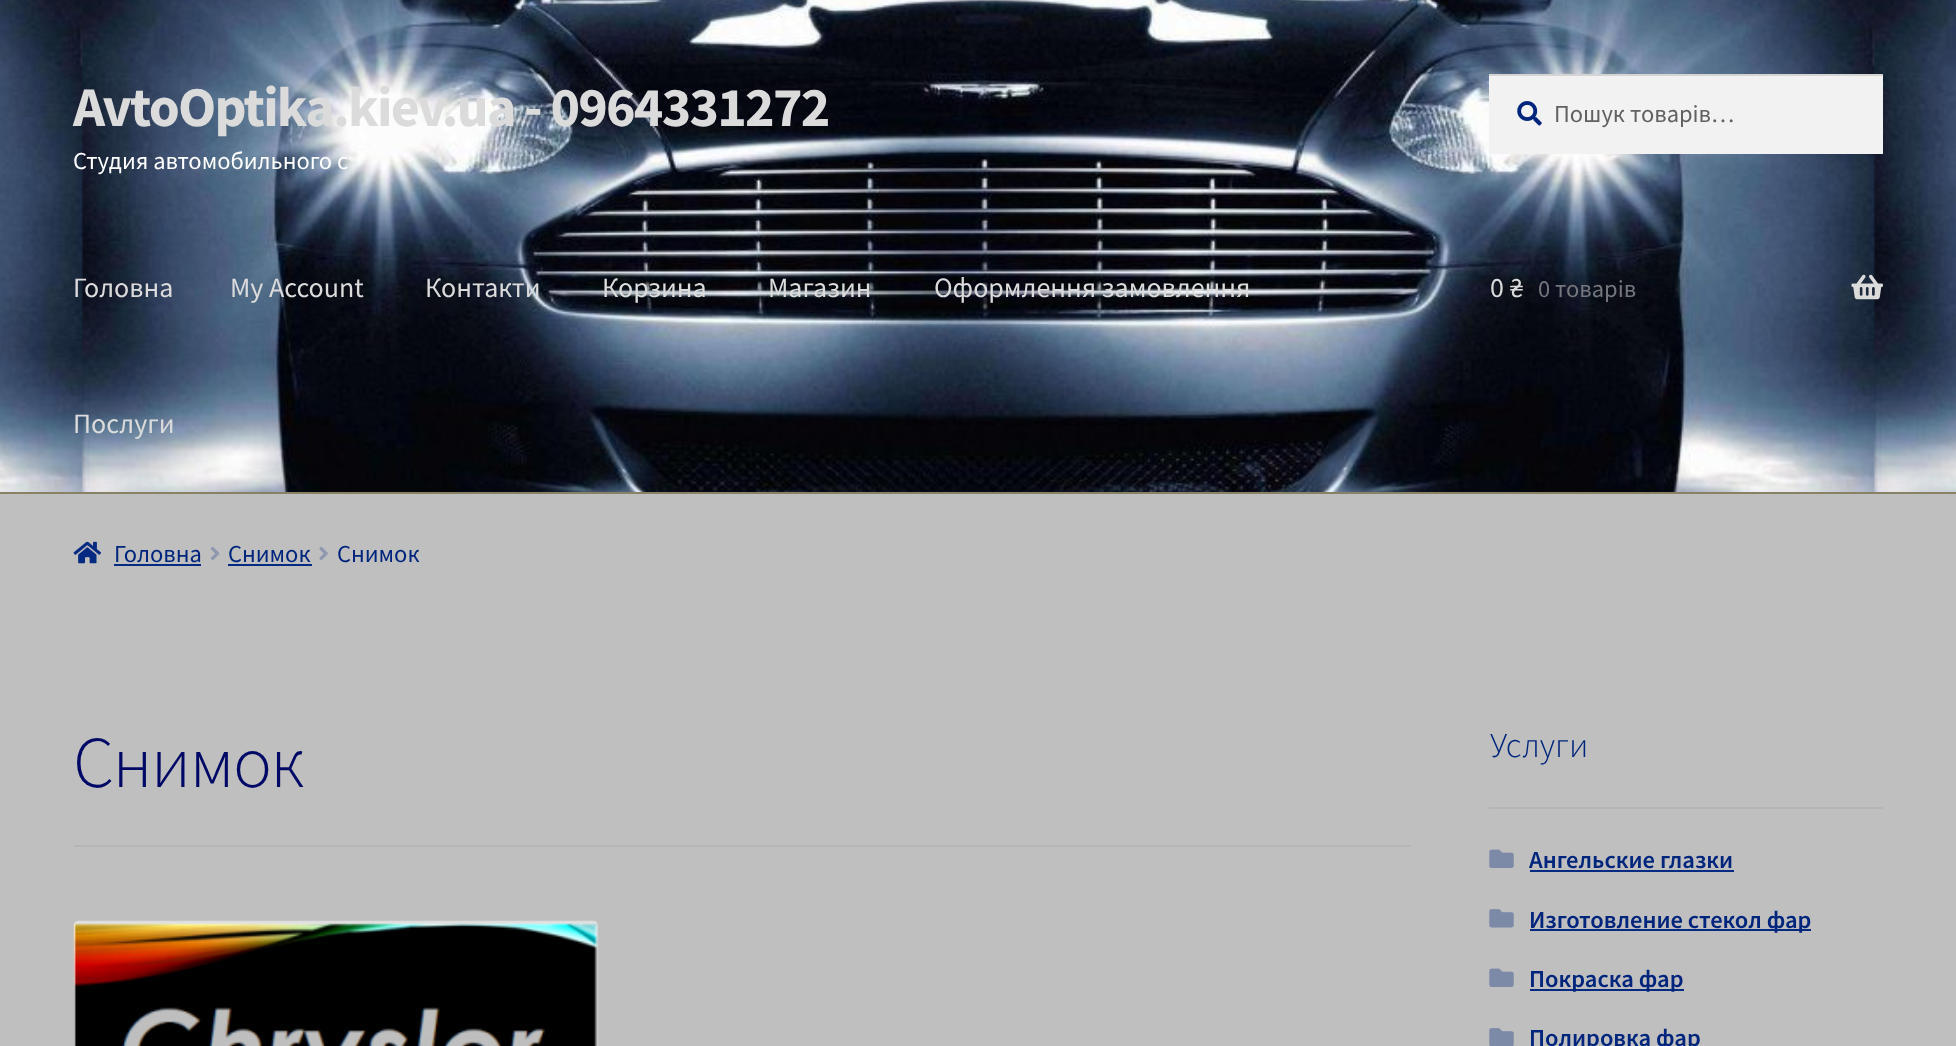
<svg xmlns="http://www.w3.org/2000/svg" width="1956" height="1046">
	<rect width="100%" height="100%" fill="#BFBFBF" />
	<image x="0" y="0" width="1956" height="492" href="assets/img1.png" />
	<rect x="0" y="492" width="1956" height="2" fill="#878263" />
	<text x="73" y="126" font-family="Source Sans Pro" font-size="56" font-weight="700" letter-spacing="-1.75" fill="#DBDBDB">AvtoOptika.kiev.ua - 0964331272</text>
	<text x="73" y="169" font-family="Source Sans Pro" font-size="24.5" fill="#FFFFFF">Студия автомобильного с</text>
	<rect x="1489" y="76" width="394" height="78" fill="#F2F2F2" />
	<image x="1517" y="101" width="25" height="25" href="assets/img2.png" />
	<rect x="1489" y="74" width="394" height="2" fill="#D4D4D4" />
	<text x="1554" y="122" font-family="Source Sans Pro" font-size="24.5" fill="#616161">Пошук товарів…</text>
	<g font-family="Source Sans Pro" font-size="28" fill="#DBDBDB">
		<text x="73" y="297">Головна</text>
		<text x="230" y="297">My Account</text>
		<text x="425" y="297">Контакти</text>
		<text x="602" y="297">Корзина</text>
		<text x="768" y="297">Магазин</text>
		<text x="934" y="297">Оформлення замовлення</text>
		<text x="73" y="433">Послуги</text>
		<text x="1490" y="297">0 ₴</text>
	</g>
	<text x="1538" y="297" font-family="Source Sans Pro" font-size="24.5" fill="#74767C">0 товарів</text>
	<image x="1851" y="274" width="32" height="26" href="assets/img3.png" />
	<image x="73" y="541" width="29" height="23" href="assets/img4.png" />
	<text x="114" y="562" font-family="Source Sans Pro" font-size="24.5" fill="#00257C">Головна</text>
	<rect x="114" y="564" width="87" height="2" fill="#052A81" />
	<image x="210" y="546" width="10" height="15" href="assets/img5.png" />
	<text x="228" y="562" font-family="Source Sans Pro" font-size="24.5" fill="#00257C">Снимок</text>
	<rect x="228" y="564" width="84" height="2" fill="#052A81" />
	<image x="319" y="546" width="9" height="15" href="assets/img6.png" />
	<text x="337" y="562" font-family="Source Sans Pro" font-size="24.5" fill="#00257C">Снимок</text>
	<rect x="74" y="845" width="1337" height="2" fill="#B5B5B5" />
	<text x="73" y="787" font-family="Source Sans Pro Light" font-size="73" font-weight="300" letter-spacing="-1.75" fill="#000866">Снимок</text>
	<image x="73" y="920" width="526" height="126" href="assets/img7.png" />
	<rect x="1489" y="807" width="394" height="2" fill="#B5B5B5" />
	<text x="1490" y="757" font-family="Source Sans Pro Light" font-size="35" font-weight="300" fill="#00257C">Услуги</text>
	<image x="1489" y="849" width="25" height="19" href="assets/img8.png" />
	<text x="1529" y="868" font-family="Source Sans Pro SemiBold" font-size="24.5" font-weight="600" fill="#00257C">Ангельские глазки</text>
	<rect x="1530" y="870" width="204" height="2" fill="#052A81" />
	<image x="1489" y="909" width="25" height="19" href="assets/img9.png" />
	<rect x="1530" y="929" width="281" height="2" fill="#052A81" />
	<text x="1529" y="928" font-family="Source Sans Pro SemiBold" font-size="24.5" font-weight="600" fill="#00257C">Изготовление стекол фар</text>
	<image x="1489" y="968" width="25" height="19" href="assets/img8.png" />
	<rect x="1530" y="989" width="154" height="2" fill="#052A81" />
	<text x="1529" y="987" font-family="Source Sans Pro SemiBold" font-size="24.5" font-weight="600" fill="#00257C">Покраска фар</text>
	<image x="1489" y="1028" width="25" height="18" href="assets/img10.png" />
	<text x="1529" y="1046" font-family="Source Sans Pro SemiBold" font-size="24.5" font-weight="600" fill="#00257C">Полировка фар</text>
</svg>
